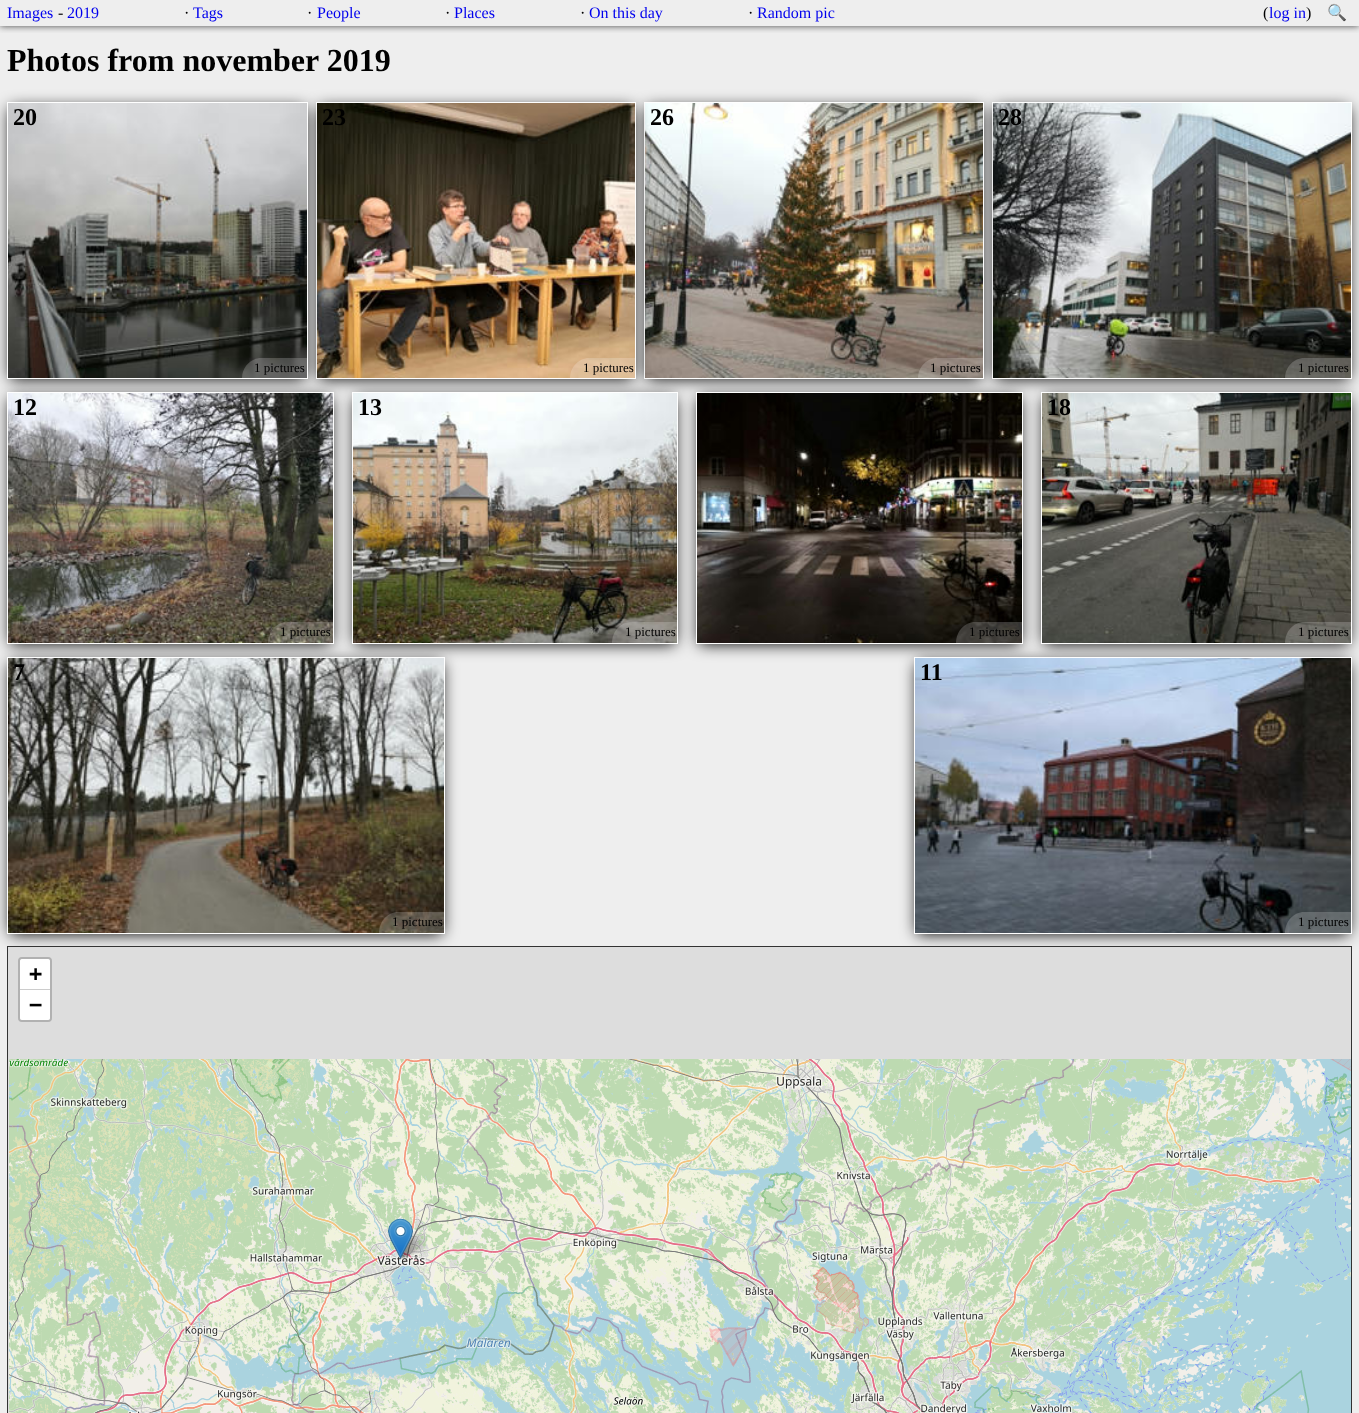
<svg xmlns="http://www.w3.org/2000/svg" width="1359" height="1413">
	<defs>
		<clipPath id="clip1"><rect x="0" y="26" width="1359" height="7" /></clipPath>
	</defs>
	<rect width="100%" height="100%" fill="#EEEEEE" />
	<g clip-path="url(#clip1)">
		<rect x="0" y="0" width="1359" height="26" fill="#444444" filter="blur(3.5px)" />
	</g>
	<text x="7" y="18" font-family="Liberation Serif" font-size="16" fill="#0000EE">Images</text>
	<text x="58" y="18" font-family="Liberation Serif" font-size="16" fill="#000000">-</text>
	<text x="67" y="18" font-family="Liberation Serif" font-size="16" fill="#0000EE">2019</text>
	<text x="184" y="18" font-family="Liberation Serif" font-size="16" fill="#000000">·</text>
	<text x="193" y="18" font-family="Liberation Serif" font-size="16" fill="#0000EE">Tags</text>
	<text x="307" y="18" font-family="Liberation Serif" font-size="16" fill="#000000">·</text>
	<text x="317" y="18" font-family="Liberation Serif" font-size="16" fill="#0000EE">People</text>
	<text x="445" y="18" font-family="Liberation Serif" font-size="16" fill="#000000">·</text>
	<text x="454" y="18" font-family="Liberation Serif" font-size="16" fill="#0000EE">Places</text>
	<text x="580" y="18" font-family="Liberation Serif" font-size="16" fill="#000000">·</text>
	<text x="589" y="18" font-family="Liberation Serif" font-size="16" fill="#0000EE">On this day</text>
	<text x="748" y="18" font-family="Liberation Serif" font-size="16" fill="#000000">·</text>
	<text x="757" y="18" font-family="Liberation Serif" font-size="16" fill="#0000EE">Random pic</text>
	<text x="1263" y="18" font-family="Liberation Serif" font-size="16" fill="#000000">(</text>
	<text x="1269" y="18" font-family="Liberation Serif" font-size="16" fill="#0000EE">log in</text>
	<text x="1306" y="18" font-family="Liberation Serif" font-size="16" fill="#000000">)</text>
	<text x="1327" y="18" font-family="Noto Color Emoji" font-size="16" fill="#000000">🔍</text>
	<text x="7" y="71" font-family="Liberation Serif" font-size="32" font-weight="700" fill="#000000">Photos from november 2019</text>
	<rect x="995" y="108" width="354" height="271" fill="#000000" filter="blur(8px)" />
	<rect x="992.5" y="102.5" width="359" height="276" fill="none" stroke="#FFFFFF" />
	<image x="993" y="103" width="358" height="275" href="assets/img4.png" />
	<rect x="647" y="108" width="334" height="271" fill="#000000" filter="blur(8px)" />
	<rect x="644.5" y="102.5" width="339" height="276" fill="none" stroke="#FFFFFF" />
	<image x="645" y="103" width="338" height="275" href="assets/img3.png" />
	<rect x="319" y="108" width="314" height="271" fill="#000000" filter="blur(8px)" />
	<rect x="316.5" y="102.5" width="319" height="276" fill="none" stroke="#FFFFFF" />
	<image x="317" y="103" width="318" height="275" href="assets/img2.png" />
	<rect x="10" y="108" width="295" height="271" fill="#000000" filter="blur(8px)" />
	<rect x="7.5" y="102.5" width="300" height="276" fill="none" stroke="#FFFFFF" />
	<image x="8" y="103" width="299" height="275" href="assets/img1.png" />
	<text x="13" y="125" font-family="Liberation Serif" font-size="24" font-weight="700" fill="#000000">20</text>
	<path d="M261 358H307V378H242C242 367 251 358 261 358Z" fill="#FFFFFF" fill-opacity="0.2" />
	<text x="254" y="372" font-family="Liberation Serif" font-size="13" fill="#000000">1 pictures</text>
	<text x="322" y="125" font-family="Liberation Serif" font-size="24" font-weight="700" fill="#000000">23</text>
	<path d="M589 358H635V378H570C570 367 579 358 589 358Z" fill="#FFFFFF" fill-opacity="0.2" />
	<text x="583" y="372" font-family="Liberation Serif" font-size="13" fill="#000000">1 pictures</text>
	<text x="650" y="125" font-family="Liberation Serif" font-size="24" font-weight="700" fill="#000000">26</text>
	<path d="M937 358H983V378H918C918 367 927 358 937 358Z" fill="#FFFFFF" fill-opacity="0.2" />
	<text x="930" y="372" font-family="Liberation Serif" font-size="13" fill="#000000">1 pictures</text>
	<text x="998" y="125" font-family="Liberation Serif" font-size="24" font-weight="700" fill="#000000">28</text>
	<path d="M1304 358H1351V378H1285C1285 367 1294 358 1304 358Z" fill="#FFFFFF" fill-opacity="0.2" />
	<text x="1298" y="372" font-family="Liberation Serif" font-size="13" fill="#000000">1 pictures</text>
	<rect x="1044" y="398" width="305" height="246" fill="#000000" filter="blur(8px)" />
	<rect x="1041.5" y="392.5" width="310" height="251" fill="none" stroke="#FFFFFF" />
	<image x="1042" y="393" width="309" height="250" href="assets/img8.png" />
	<rect x="699" y="398" width="321" height="246" fill="#000000" filter="blur(8px)" />
	<rect x="696.5" y="392.5" width="326" height="251" fill="none" stroke="#FFFFFF" />
	<image x="697" y="393" width="325" height="250" href="assets/img7.png" />
	<rect x="355" y="398" width="320" height="246" fill="#000000" filter="blur(8px)" />
	<rect x="352.5" y="392.5" width="325" height="251" fill="none" stroke="#FFFFFF" />
	<image x="353" y="393" width="324" height="250" href="assets/img6.png" />
	<rect x="10" y="398" width="321" height="246" fill="#000000" filter="blur(8px)" />
	<rect x="7.5" y="392.5" width="326" height="251" fill="none" stroke="#FFFFFF" />
	<image x="8" y="393" width="325" height="250" href="assets/img5.png" />
	<text x="13" y="415" font-family="Liberation Serif" font-size="24" font-weight="700" fill="#000000">12</text>
	<path d="M287 622H333V643H268C268 631 277 622 287 622Z" fill="#FFFFFF" fill-opacity="0.2" />
	<text x="280" y="636" font-family="Liberation Serif" font-size="13" fill="#000000">1 pictures</text>
	<text x="358" y="415" font-family="Liberation Serif" font-size="24" font-weight="700" fill="#000000">13</text>
	<path d="M631 622H677V643H612C612 631 621 622 631 622Z" fill="#FFFFFF" fill-opacity="0.2" />
	<text x="625" y="636" font-family="Liberation Serif" font-size="13" fill="#000000">1 pictures</text>
	<path d="M975 622H1022V643H956C956 631 965 622 975 622Z" fill="#FFFFFF" fill-opacity="0.2" />
	<text x="969" y="636" font-family="Liberation Serif" font-size="13" fill="#000000">1 pictures</text>
	<text x="1047" y="415" font-family="Liberation Serif" font-size="24" font-weight="700" fill="#000000">18</text>
	<path d="M1304 622H1351V643H1285C1285 631 1294 622 1304 622Z" fill="#FFFFFF" fill-opacity="0.2" />
	<text x="1298" y="636" font-family="Liberation Serif" font-size="13" fill="#000000">1 pictures</text>
	<rect x="10" y="663" width="432" height="271" fill="#000000" filter="blur(8px)" />
	<rect x="7.5" y="657.5" width="437" height="276" fill="none" stroke="#FFFFFF" />
	<image x="8" y="658" width="436" height="275" href="assets/img9.png" />
	<text x="13" y="680" font-family="Liberation Serif" font-size="24" font-weight="700" fill="#000000">7</text>
	<path d="M398 912H444V933H379C379 921 388 912 398 912Z" fill="#FFFFFF" fill-opacity="0.2" />
	<text x="392" y="926" font-family="Liberation Serif" font-size="13" fill="#000000">1 pictures</text>
	<rect x="917" y="663" width="432" height="271" fill="#000000" filter="blur(8px)" />
	<rect x="914.5" y="657.5" width="437" height="276" fill="none" stroke="#FFFFFF" />
	<image x="915" y="658" width="436" height="275" href="assets/img10.png" />
	<text x="920" y="680" font-family="Liberation Serif" font-size="24" font-weight="700" fill="#000000">11</text>
	<path d="M1304 912H1351V933H1285C1285 921 1294 912 1304 912Z" fill="#FFFFFF" fill-opacity="0.2" />
	<text x="1298" y="926" font-family="Liberation Serif" font-size="13" fill="#000000">1 pictures</text>
	<rect x="7.5" y="946.5" width="1344" height="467" fill="#DDDDDD" stroke="#333333" />
	<rect x="19" y="958" width="32" height="63" rx="3" fill="none" stroke="#B1B1B1" stroke-width="2" />
	<path d="M22 959H48C49 959 50 960 50 961V990H20V961C20 960 21 959 22 959Z" fill="#FFFFFF" />
	<rect x="20" y="989" width="30" height="1" fill="#CCCCCC" />
	<text x="29" y="981" font-family="DejaVu Sans Mono" font-size="22" font-weight="700" fill="#000000">+</text>
	<path d="M20 990H50V1018C50 1019 49 1020 48 1020H22C21 1020 20 1019 20 1018Z" fill="#FFFFFF" />
	<text x="29" y="1012" font-family="DejaVu Sans Mono" font-size="22" font-weight="700" fill="#000000">−</text>
	<image x="9" y="1059" width="256" height="256" href="assets/img11.png" />
	<image x="265" y="1059" width="256" height="256" href="assets/img12.png" />
	<image x="521" y="1059" width="256" height="256" href="assets/img13.png" />
	<image x="777" y="1059" width="256" height="256" href="assets/img14.png" />
	<image x="1033" y="1059" width="256" height="256" href="assets/img15.png" />
	<image x="1289" y="1059" width="62" height="256" href="assets/img16.png" />
	<image x="9" y="1315" width="256" height="98" href="assets/img17.png" />
	<image x="265" y="1315" width="256" height="98" href="assets/img18.png" />
	<image x="521" y="1315" width="256" height="98" href="assets/img19.png" />
	<image x="777" y="1315" width="256" height="98" href="assets/img20.png" />
	<image x="1033" y="1315" width="256" height="98" href="assets/img21.png" />
	<image x="1289" y="1315" width="62" height="98" href="assets/img22.png" />
	<image x="398" y="1231" width="29" height="28" href="assets/img24.png" />
	<image x="388" y="1218" width="25" height="41" href="assets/img23.png" />
</svg>
